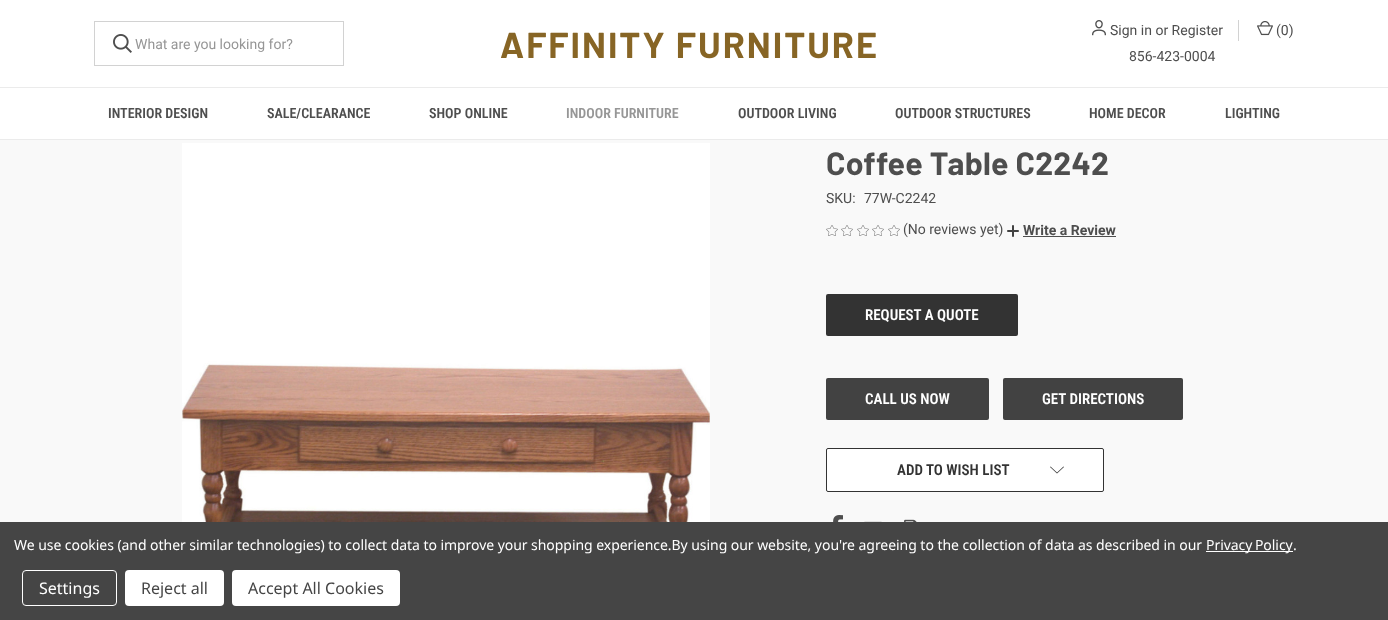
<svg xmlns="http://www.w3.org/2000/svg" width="1388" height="620">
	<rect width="100%" height="100%" fill="#F9F9F9" />
	<rect x="0" y="0" width="1388" height="139" fill="#FFFFFF" />
	<rect x="94.5" y="21.5" width="249" height="44" fill="none" stroke="#D2D2D2" />
	<image x="113" y="34" width="19" height="19" href="assets/img1.png" />
	<text x="135" y="49" font-family="Roboto" font-size="14" fill="#969696">What are you looking for?</text>
	<text x="500" y="58" font-family="Barlow" font-size="36" font-weight="700" letter-spacing="2" fill="#876525">AFFINITY FURNITURE</text>
	<image x="1092" y="20" width="14" height="16" href="assets/img2.png" />
	<text x="1110" y="35" font-family="Roboto" font-size="14" fill="#4E4E4E">Sign in or Register</text>
	<rect x="1238" y="20" width="1" height="21" fill="#D2D2D2" />
	<image x="1257" y="21" width="16" height="15" href="assets/img3.png" />
	<g font-family="Roboto" font-size="14" fill="#4E4E4E">
		<text x="1276" y="35">(0)</text>
		<text x="1129" y="61">856-423-0004</text>
	</g>
	<rect x="0" y="87" width="1388" height="1" fill="#EBEBEB" />
	<rect x="0" y="139" width="1388" height="1" fill="#EBEBEB" />
	<g font-family="Roboto Condensed" font-size="14" font-weight="600" fill="#4E4E4E">
		<text x="108" y="118">INTERIOR DESIGN</text>
		<text x="267" y="118">SALE/CLEARANCE</text>
		<text x="429" y="118">SHOP ONLINE</text>
	</g>
	<text x="566" y="118" font-family="Roboto Condensed" font-size="14" font-weight="600" fill="#969696">INDOOR FURNITURE</text>
	<g font-family="Roboto Condensed" font-size="14" font-weight="600" fill="#4E4E4E">
		<text x="738" y="118">OUTDOOR LIVING</text>
		<text x="895" y="118">OUTDOOR STRUCTURES</text>
		<text x="1089" y="118">HOME DECOR</text>
		<text x="1225" y="118">LIGHTING</text>
	</g>
	<image x="182" y="143" width="528" height="379" href="assets/img4.png" />
	<text x="826" y="175" font-family="Barlow" font-size="32" font-weight="700" letter-spacing="0.25" fill="#4E4E4E">Coffee Table C2242</text>
	<g font-family="Roboto" font-size="14" fill="#4E4E4E">
		<text x="826" y="203">SKU:</text>
		<text x="864" y="203">77W-C2242</text>
	</g>
	<image x="826" y="225" width="12" height="11" href="assets/img5.png" />
	<image x="841" y="225" width="12" height="11" href="assets/img5.png" />
	<image x="857" y="225" width="12" height="11" href="assets/img5.png" />
	<image x="872" y="225" width="12" height="11" href="assets/img5.png" />
	<image x="888" y="225" width="12" height="11" href="assets/img5.png" />
	<text x="903" y="234" font-family="Roboto" font-size="14" fill="#4E4E4E">(No reviews yet)</text>
	<image x="1007" y="225" width="12" height="12" href="assets/img6.png" />
	<text x="1023" y="235" font-family="Roboto" font-size="14" font-weight="700" fill="#4E4E4E">Write a Review</text>
	<rect x="1023" y="236" width="93" height="1" fill="#4E4E4E" />
	<rect x="826" y="294" width="192" height="42" rx="2" fill="#333333" />
	<text x="865" y="320" font-family="Roboto Condensed" font-size="15" font-weight="600" fill="#FFFFFF">REQUEST A QUOTE</text>
	<rect x="826" y="378" width="163" height="42" rx="2" fill="#424242" />
	<text x="865" y="404" font-family="Roboto Condensed" font-size="15" font-weight="600" fill="#FFFFFF">CALL US NOW</text>
	<rect x="1003" y="378" width="180" height="42" rx="2" fill="#424242" />
	<text x="1042" y="404" font-family="Roboto Condensed" font-size="15" font-weight="600" fill="#FFFFFF">GET DIRECTIONS</text>
	<rect x="826.5" y="448.5" width="277" height="43" rx="1.5" fill="#FFFFFF" stroke="#333333" />
	<text x="897" y="475" font-family="Roboto Condensed" font-size="15" font-weight="600" fill="#333333">ADD TO WISH LIST</text>
	<image x="1050" y="466" width="14" height="8" href="assets/img7.png" />
	<image x="833" y="515" width="10" height="7" href="assets/img8.png" />
	<image x="864" y="521" width="18" height="1" href="assets/img9.png" />
	<image x="904" y="519" width="13" height="3" href="assets/img10.png" />
	<rect x="0" y="522" width="1388" height="98" fill="#454545" />
	<text x="14" y="550" font-family="Noto Sans" font-size="14" letter-spacing="-0.05" fill="#FFFFFF">We use cookies (and other similar technologies) to collect data to improve your shopping experience.By using our website, you're agreeing to the collection of data as described in our</text>
	<rect x="1206" y="551" width="87" height="1" fill="#FFFFFF" />
	<g font-family="Noto Sans" font-size="14" letter-spacing="-0.05" fill="#FFFFFF">
		<text x="1206" y="550" word-spacing="-1">Privacy Policy</text>
		<text x="1293" y="550">.</text>
	</g>
	<rect x="22.5" y="570.5" width="94" height="35" rx="3.5" fill="none" stroke="#FFFFFF" />
	<text x="39" y="594" font-family="Noto Sans" font-size="16" fill="#FFFFFF">Settings</text>
	<rect x="125" y="570" width="99" height="36" rx="4" fill="#FFFFFF" />
	<text x="141" y="594" font-family="Noto Sans" font-size="16" fill="#454545">Reject all</text>
	<rect x="232" y="570" width="168" height="36" rx="4" fill="#FFFFFF" />
	<text x="248" y="594" font-family="Noto Sans" font-size="16" fill="#454545">Accept All Cookies</text>
</svg>
